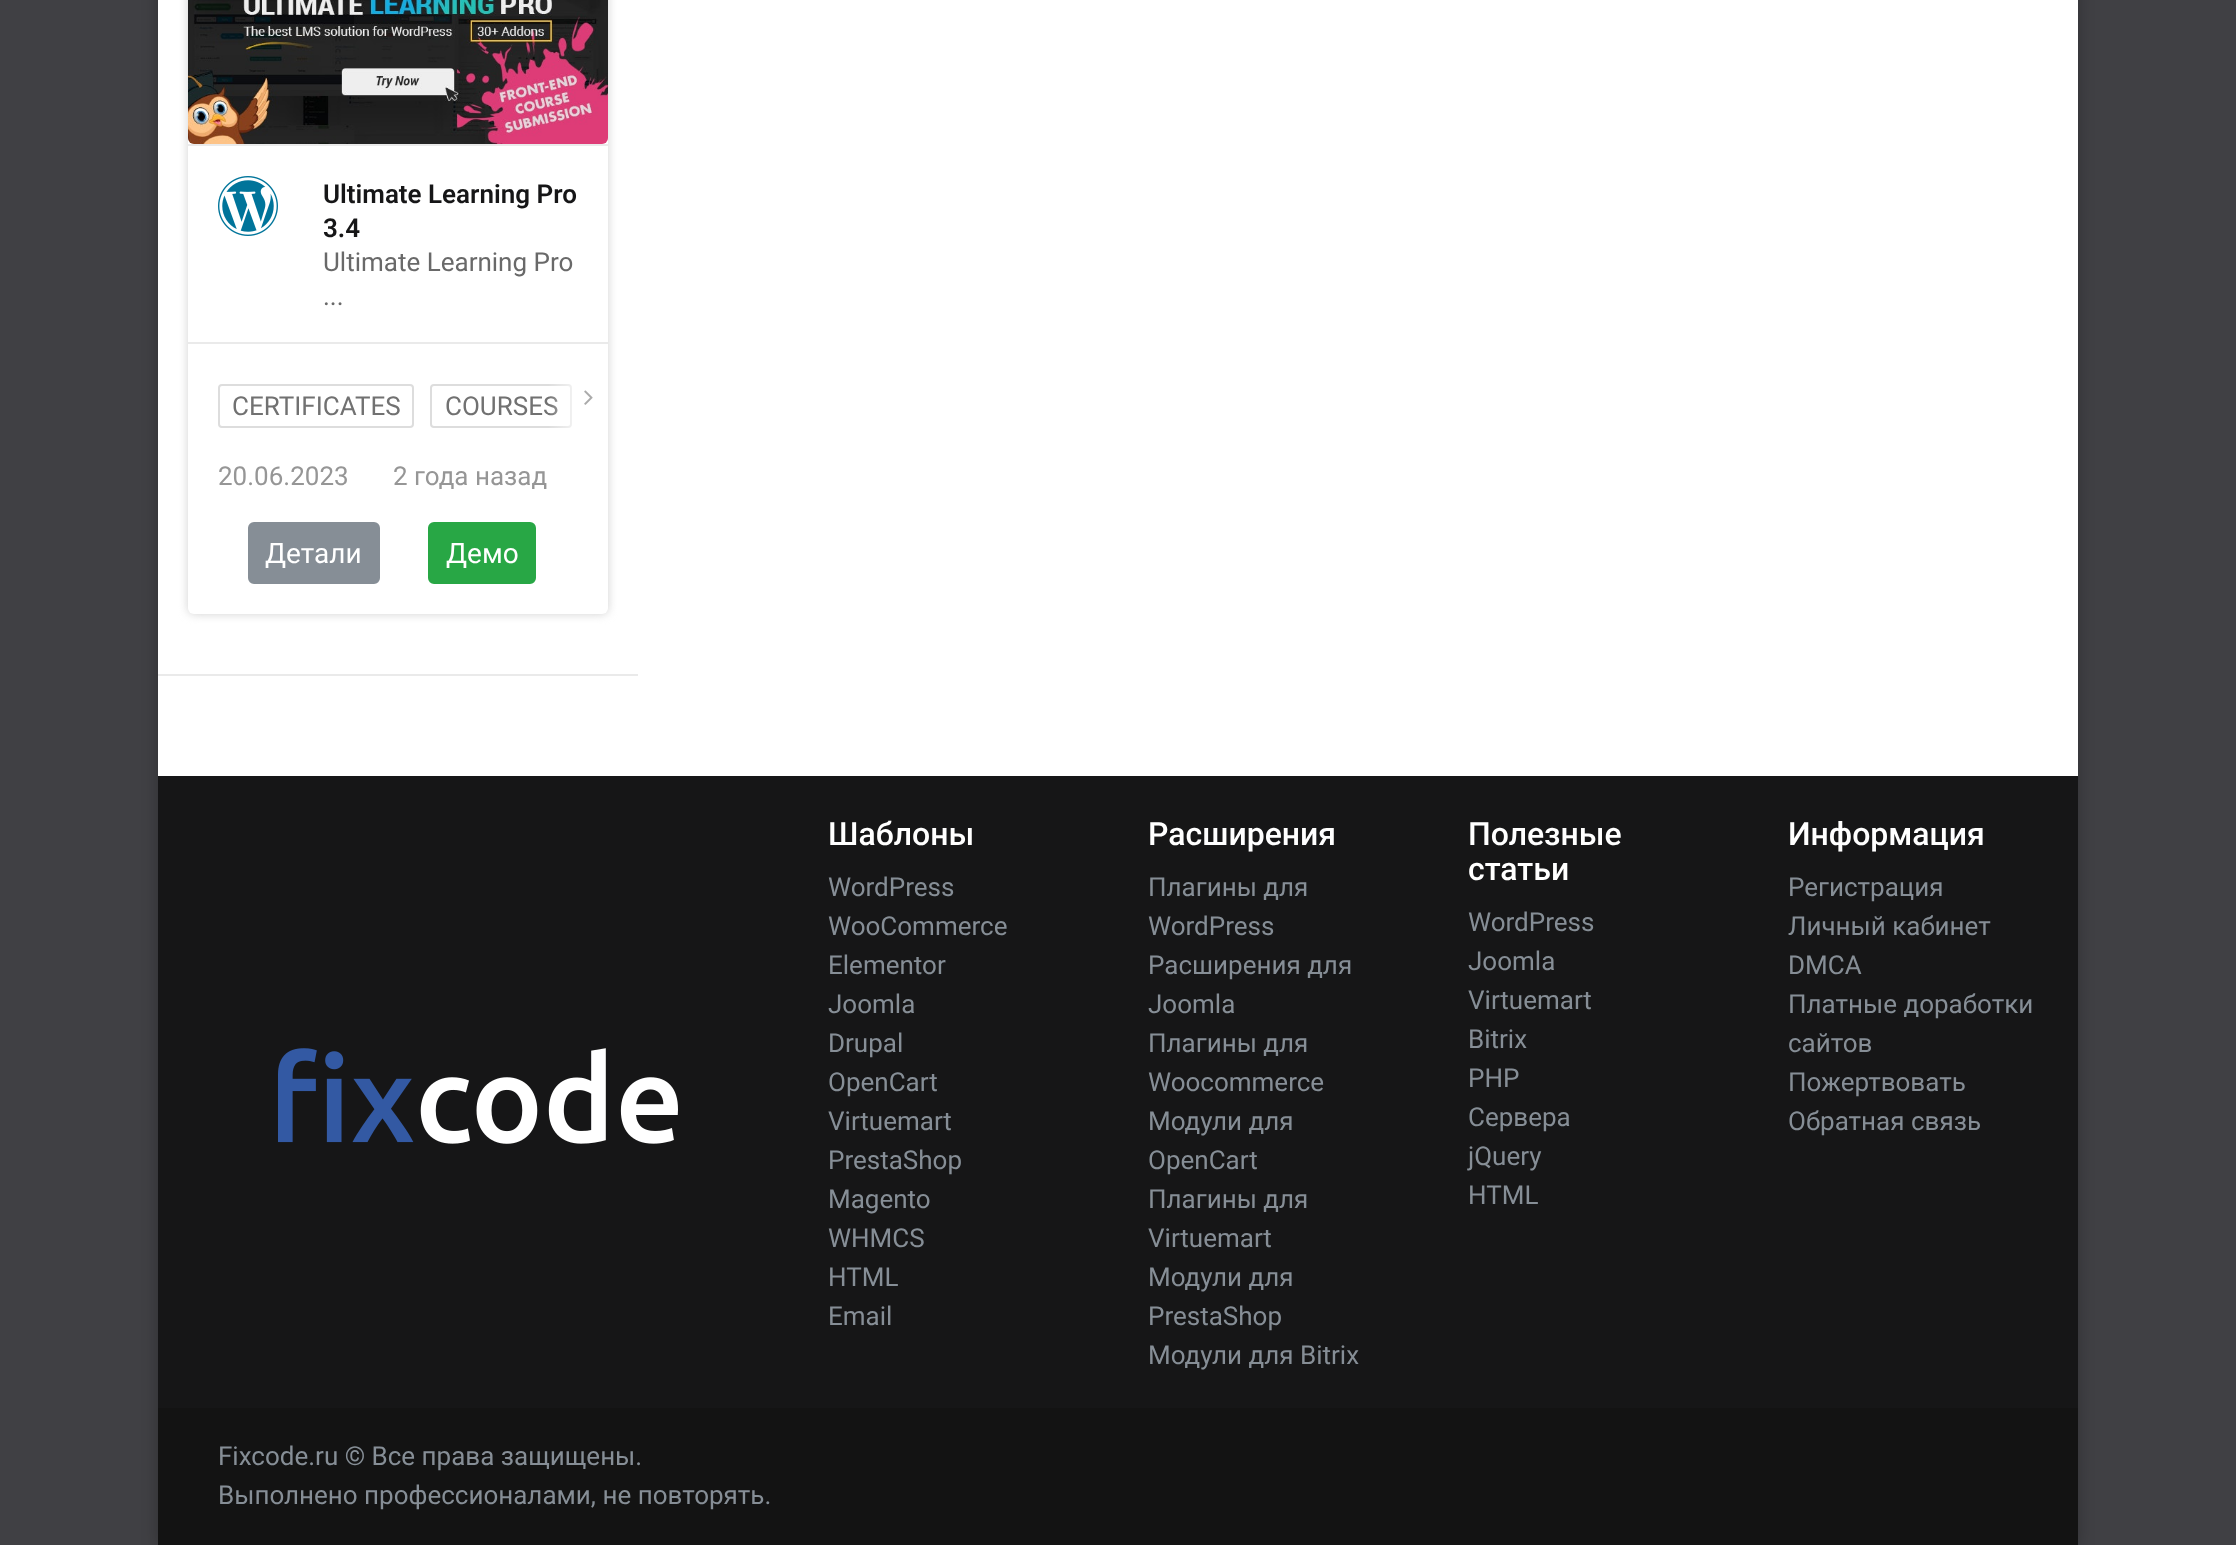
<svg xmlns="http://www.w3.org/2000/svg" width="2236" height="1545">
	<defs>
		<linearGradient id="g1" gradientUnits="userSpaceOnUse" x1="548" y1="397" x2="608" y2="397"><stop offset="0" stop-color="#FFFFFF" stop-opacity="0" /><stop offset="0.7" stop-color="#FFFFFF" /></linearGradient>
	</defs>
	<rect width="100%" height="100%" fill="#404044" />
	<rect x="158" y="-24" width="1920" height="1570" fill="#000000" fill-opacity="0.25" filter="blur(8px)" />
	<rect x="158" y="0" width="1920" height="776" fill="#FFFFFF" />
	<rect x="158" y="674" width="480" height="2" fill="#EAEAEA" />
	<rect x="188" y="-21" width="420" height="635" rx="6" fill="#D1D1D1" filter="blur(5px)" />
	<rect x="188" y="-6" width="420" height="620" rx="6" fill="#FFFFFF" />
	<image x="188" y="0" width="420" height="144" href="assets/img1.png" />
	<rect x="188" y="144" width="420" height="2" fill="#EAEAEA" />
	<image x="218" y="176" width="60" height="60" href="assets/img2.png" />
	<g font-family="Roboto" font-size="26" font-weight="600" fill="#161617">
		<text x="323" y="203">Ultimate Learning Pro</text>
		<text x="323" y="237">3.4</text>
	</g>
	<g font-family="Roboto" font-size="26" fill="#696969">
		<text x="323" y="271">Ultimate Learning Pro</text>
		<text x="323" y="305">...</text>
	</g>
	<rect x="188" y="342" width="420" height="2" fill="#EAEAEA" />
	<rect x="219" y="385" width="194" height="42" rx="3" fill="none" stroke="#DDDDDD" stroke-width="2" />
	<text x="232" y="415" font-family="Roboto" font-size="26" fill="#717171">CERTIFICATES</text>
	<rect x="431" y="385" width="140" height="42" rx="3" fill="none" stroke="#DDDDDD" stroke-width="2" />
	<text x="445" y="415" font-family="Roboto" font-size="26" fill="#717171">COURSES</text>
	<rect x="549" y="384" width="23" height="44" fill="url(#g1)" />
	<image x="584" y="390" width="9" height="15" href="assets/img3.png" />
	<g font-family="Roboto" font-size="26" fill="#969696">
		<text x="218" y="485">20.06.2023</text>
		<text x="393" y="485">2 года назад</text>
	</g>
	<rect x="249" y="523" width="130" height="60" rx="5" fill="#868E96" stroke="#868E96" stroke-width="2" />
	<text x="265" y="563" font-family="Roboto" font-size="28" fill="#FFFFFF">Детали</text>
	<rect x="429" y="523" width="106" height="60" rx="5" fill="#28A745" stroke="#28A745" stroke-width="2" />
	<text x="446" y="563" font-family="Roboto" font-size="28" fill="#FFFFFF">Демо</text>
	<rect x="158" y="776" width="1920" height="632" fill="#161617" />
	<image x="278" y="1048" width="400" height="96" href="assets/img4.png" />
	<text x="828" y="845" font-family="Roboto" font-size="32" font-weight="500" fill="#FFFFFF">Шаблоны</text>
	<g font-family="Roboto" font-size="26" fill="#868E96">
		<text x="828" y="896">WordPress</text>
		<text x="828" y="935">WooCommerce</text>
		<text x="828" y="974">Elementor</text>
		<text x="828" y="1013">Joomla</text>
		<text x="828" y="1052">Drupal</text>
		<text x="828" y="1091">OpenCart</text>
		<text x="828" y="1130">Virtuemart</text>
		<text x="828" y="1169">PrestaShop</text>
		<text x="828" y="1208">Magento</text>
		<text x="828" y="1247">WHMCS</text>
		<text x="828" y="1286">HTML</text>
		<text x="828" y="1325">Email</text>
	</g>
	<text x="1148" y="845" font-family="Roboto" font-size="32" font-weight="500" fill="#FFFFFF">Расширения</text>
	<g font-family="Roboto" font-size="26" fill="#868E96">
		<text x="1148" y="896">Плагины для</text>
		<text x="1148" y="935">WordPress</text>
		<text x="1148" y="974">Расширения для</text>
		<text x="1148" y="1013">Joomla</text>
		<text x="1148" y="1052">Плагины для</text>
		<text x="1148" y="1091">Woocommerce</text>
		<text x="1148" y="1130">Модули для</text>
		<text x="1148" y="1169">OpenCart</text>
		<text x="1148" y="1208">Плагины для</text>
		<text x="1148" y="1247">Virtuemart</text>
		<text x="1148" y="1286">Модули для</text>
		<text x="1148" y="1325">PrestaShop</text>
		<text x="1148" y="1364">Модули для Bitrix</text>
	</g>
	<g font-family="Roboto" font-size="32" font-weight="500" fill="#FFFFFF">
		<text x="1468" y="845">Полезные</text>
		<text x="1468" y="880">статьи</text>
	</g>
	<g font-family="Roboto" font-size="26" fill="#868E96">
		<text x="1468" y="931">WordPress</text>
		<text x="1468" y="970">Joomla</text>
		<text x="1468" y="1009">Virtuemart</text>
		<text x="1468" y="1048">Bitrix</text>
		<text x="1468" y="1087">PHP</text>
		<text x="1468" y="1126">Сервера</text>
		<text x="1468" y="1165">jQuery</text>
		<text x="1468" y="1204">HTML</text>
	</g>
	<text x="1788" y="845" font-family="Roboto" font-size="32" font-weight="500" fill="#FFFFFF">Информация</text>
	<g font-family="Roboto" font-size="26" fill="#868E96">
		<text x="1788" y="896">Регистрация</text>
		<text x="1788" y="935">Личный кабинет</text>
		<text x="1788" y="974">DMCA</text>
		<text x="1788" y="1013">Платные доработки</text>
		<text x="1788" y="1052">сайтов</text>
		<text x="1788" y="1091">Пожертвовать</text>
		<text x="1788" y="1130">Обратная связь</text>
	</g>
	<rect x="158" y="1408" width="1920" height="137" fill="#131313" />
	<g font-family="Roboto" font-size="26" fill="#868E96">
		<text x="218" y="1465">Fixcode.ru © Все права защищены.</text>
		<text x="218" y="1504">Выполнено профессионалами, не повторять.</text>
	</g>
</svg>
